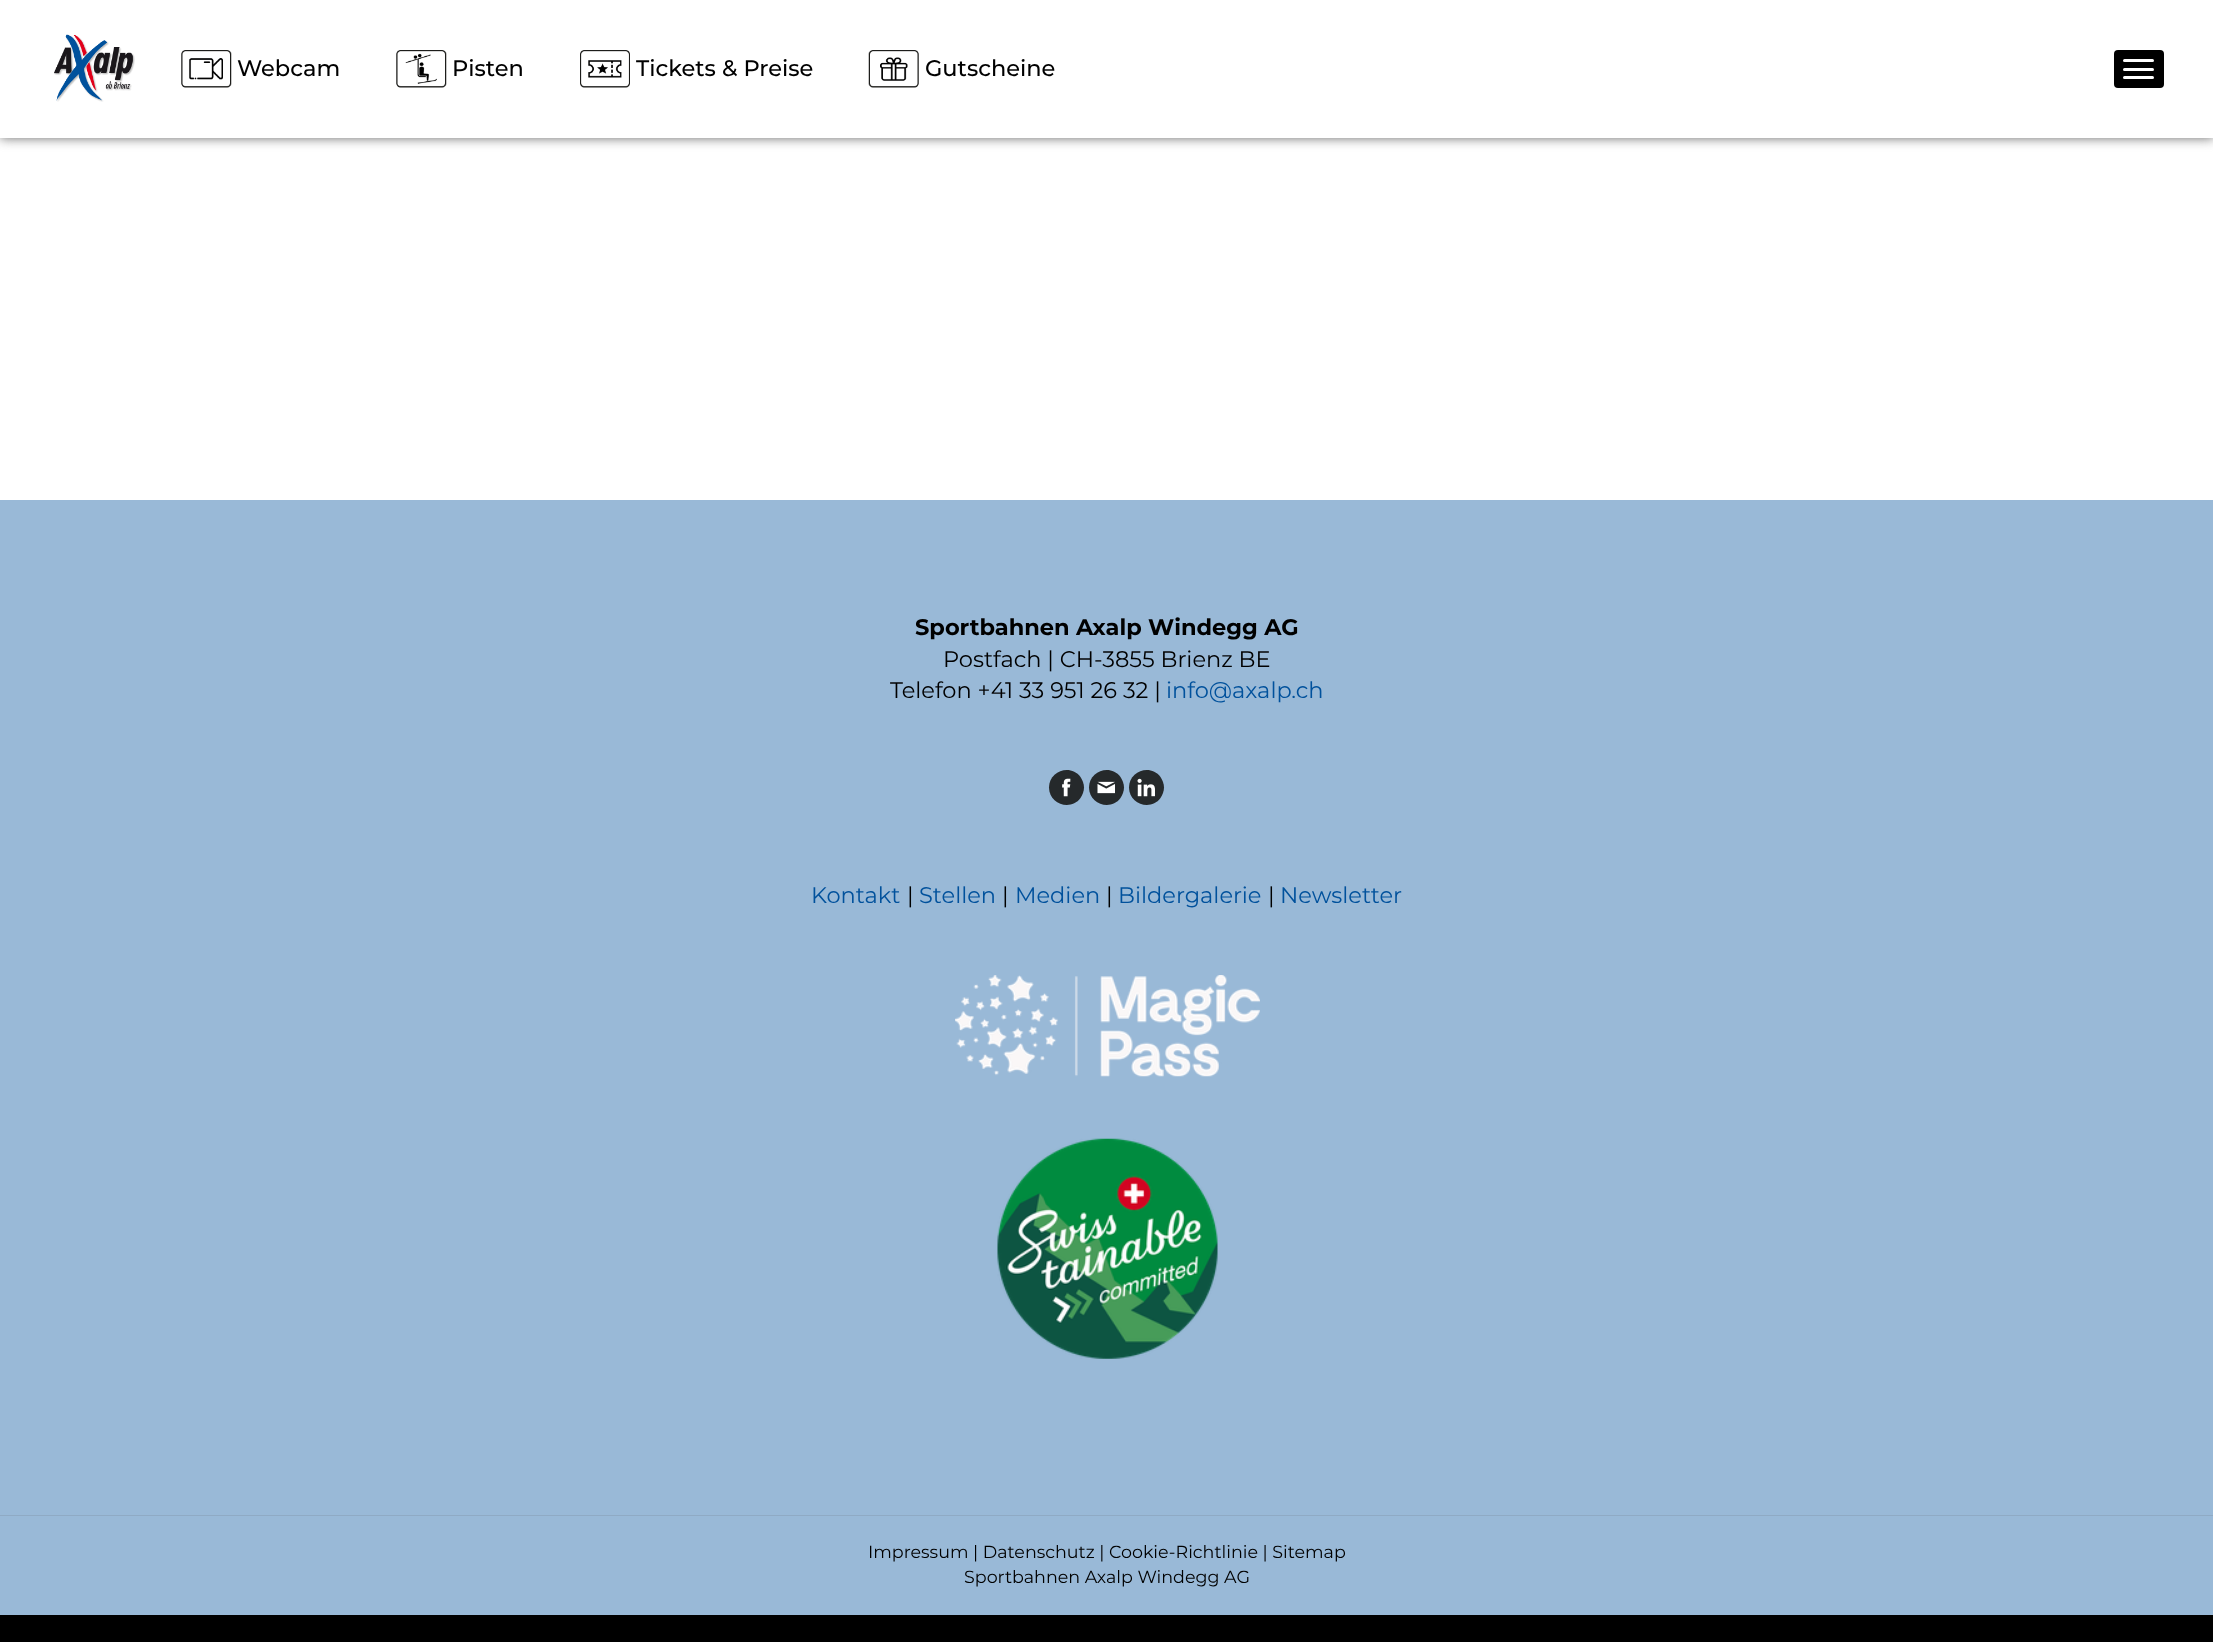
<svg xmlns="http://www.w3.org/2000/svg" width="2213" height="1642">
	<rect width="100%" height="100%" fill="#000000" />
	<rect x="0" y="138" width="2213" height="362" fill="#FFFFFF" />
	<rect x="0" y="0" width="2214" height="138" fill="#6A6A6A" filter="blur(6px)" />
	<rect x="0" y="0" width="2213" height="138" fill="#FFFFFF" />
	<image x="54" y="34" width="81" height="68" href="assets/img1.png" />
	<image x="181" y="50" width="51" height="38" href="assets/img2.png" />
	<text x="237" y="76" font-family="Montserrat" font-size="22.5" font-weight="500" fill="#000000">Webcam</text>
	<image x="396" y="50" width="51" height="38" href="assets/img3.png" />
	<text x="452" y="76" font-family="Montserrat" font-size="22.5" font-weight="500" fill="#000000">Pisten</text>
	<image x="580" y="50" width="50" height="38" href="assets/img4.png" />
	<text x="636" y="76" font-family="Montserrat" font-size="22.5" font-weight="500" fill="#000000">Tickets &amp; Preise</text>
	<image x="868" y="50" width="51" height="38" href="assets/img5.png" />
	<text x="925" y="76" font-family="Montserrat" font-size="22.5" font-weight="500" fill="#000000">Gutscheine</text>
	<rect x="2114" y="50" width="50" height="38" rx="4" fill="#000000" />
	<rect x="2123" y="59" width="31" height="3" rx="1.5" fill="#FFFFFF" />
	<rect x="2123" y="68" width="31" height="3" rx="1.5" fill="#FFFFFF" />
	<rect x="2123" y="76" width="31" height="3" rx="1.5" fill="#FFFFFF" />
	<rect x="0" y="500" width="2213" height="1015" fill="#99B9D7" />
	<text x="915" y="635" font-family="Montserrat" font-size="22.5" font-weight="700" fill="#000000">Sportbahnen Axalp Windegg AG</text>
	<g font-family="Montserrat" font-size="22.5" fill="#000000">
		<text x="943" y="667">Postfach | CH-3855 Brienz BE</text>
		<text x="890" y="698">Telefon +41 33 951 26 32 |</text>
	</g>
	<text x="1166" y="698" font-family="Montserrat" font-size="22.5" fill="#00519C">info@axalp.ch</text>
	<path d="M1049 787.5C1049 804 1070.5 811.5 1080.5 798C1082.5 795 1084 791 1084 787.5C1084 784 1082.5 780 1080.5 777C1070.5 763.5 1049 771 1049 787.5Z" fill="#25292B" />
	<image x="1062" y="778" width="9" height="19" href="assets/img6.png" />
	<path d="M1089 787.5C1089 804 1110.5 811.5 1120.5 798C1122.5 795 1124 791 1124 787.5C1124 784 1122.5 780 1120.5 777C1110.5 763.5 1089 771 1089 787.5Z" fill="#25292B" />
	<image x="1097" y="781" width="18" height="13" href="assets/img7.png" />
	<path d="M1129 787.5C1129 804 1150.5 811.5 1160.5 798C1162.5 795 1164 791 1164 787.5C1164 784 1162.5 780 1160.5 777C1150.5 763.5 1129 771 1129 787.5Z" fill="#25292B" />
	<image x="1137" y="778" width="18" height="19" href="assets/img8.png" />
	<text x="811" y="903" font-family="Montserrat" font-size="22.5" fill="#00519C">Kontakt</text>
	<text x="907" y="903" font-family="Montserrat" font-size="22.5" fill="#000000">|</text>
	<text x="919" y="903" font-family="Montserrat" font-size="22.5" fill="#00519C">Stellen</text>
	<text x="1002" y="903" font-family="Montserrat" font-size="22.5" fill="#000000">|</text>
	<text x="1015" y="903" font-family="Montserrat" font-size="22.5" fill="#00519C">Medien</text>
	<text x="1106" y="903" font-family="Montserrat" font-size="22.5" fill="#000000">|</text>
	<text x="1118" y="903" font-family="Montserrat" font-size="22.5" fill="#00519C">Bildergalerie</text>
	<text x="1268" y="903" font-family="Montserrat" font-size="22.5" fill="#000000">|</text>
	<text x="1280" y="903" font-family="Montserrat" font-size="22.5" fill="#00519C">Newsletter</text>
	<image x="955" y="975" width="305" height="102" href="assets/img9.png" />
	<image x="997" y="1138" width="221" height="221" href="assets/img10.png" />
	<rect x="0" y="1516" width="2213" height="99" fill="#99B9D7" />
	<rect x="0" y="1515" width="2213" height="1" fill="#8FAAC4" />
	<g font-family="Montserrat" font-size="17.5" fill="#000000">
		<text x="868" y="1558">Impressum | Datenschutz | Cookie-Richtlinie | Sitemap</text>
		<text x="964" y="1583">Sportbahnen Axalp Windegg AG</text>
	</g>
</svg>
